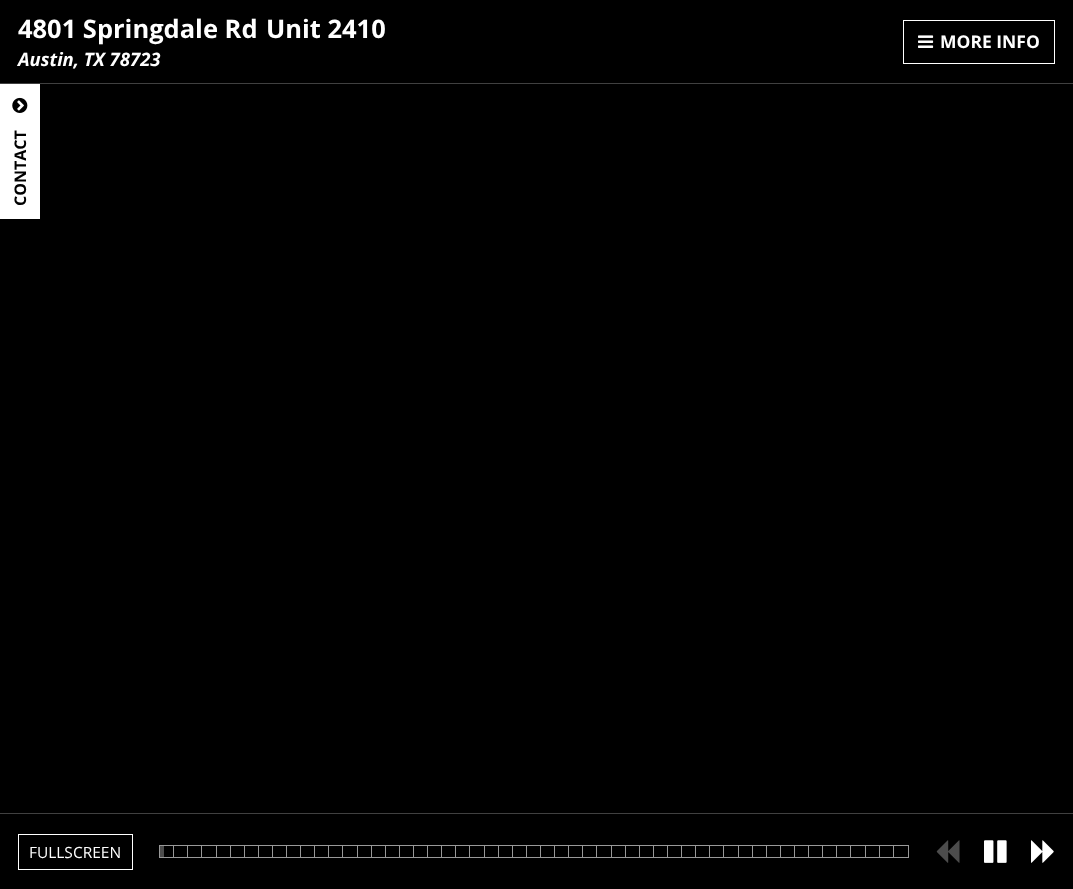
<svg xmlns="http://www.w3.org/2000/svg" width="1073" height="889">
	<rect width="100%" height="100%" fill="#000000" />
	<rect x="0" y="83" width="1073" height="1" fill="#404040" />
	<g font-family="Open Sans" font-size="25.5" font-weight="700" fill="#FFFFFF">
		<text x="18" y="38">4801 Springdale Rd</text>
		<text x="266" y="38">Unit 2410</text>
	</g>
	<text x="18" y="66" font-family="Open Sans" font-size="18.5" font-weight="700" font-style="italic" fill="#FFFFFF">Austin, TX 78723</text>
	<rect x="903.5" y="20.5" width="151" height="43" fill="none" stroke="#FFFFFF" />
	<image x="918" y="35" width="16" height="13" href="assets/img1.png" />
	<text x="940" y="48" font-family="Open Sans" font-size="17.5" font-weight="700" fill="#FFFFFF">MORE INFO</text>
	<rect x="0" y="84" width="40" height="135" fill="#FFFFFF" />
	<image x="12" y="97" width="16" height="16" href="assets/img2.png" />
	<text x="26" y="206" transform="rotate(-90 26 206)" font-family="Open Sans" font-size="16" font-weight="700" fill="#000000">CONTACT</text>
	<rect x="0" y="813" width="1073" height="1" fill="#404040" />
	<rect x="18.5" y="834.5" width="114" height="35" fill="none" stroke="#FFFFFF" />
	<text x="29" y="858" font-family="Open Sans" font-size="15.5" fill="#FFFFFF">FULLSCREEN</text>
	<rect x="159.5" y="845.5" width="749" height="12" fill="none" stroke="#999999" />
	<rect x="160" y="846" width="4" height="11" fill="#4D4D4D" />
	<rect x="173" y="846" width="1" height="11" fill="#999999" />
	<rect x="187" y="846" width="1" height="11" fill="#999999" />
	<rect x="201" y="846" width="1" height="11" fill="#999999" />
	<rect x="216" y="846" width="1" height="11" fill="#999999" />
	<rect x="230" y="846" width="1" height="11" fill="#999999" />
	<rect x="244" y="846" width="1" height="11" fill="#999999" />
	<rect x="258" y="846" width="1" height="11" fill="#999999" />
	<rect x="272" y="846" width="1" height="11" fill="#999999" />
	<rect x="286" y="846" width="1" height="11" fill="#999999" />
	<rect x="300" y="846" width="1" height="11" fill="#999999" />
	<rect x="314" y="846" width="1" height="11" fill="#999999" />
	<rect x="328" y="846" width="1" height="11" fill="#999999" />
	<rect x="342" y="846" width="1" height="11" fill="#999999" />
	<rect x="357" y="846" width="1" height="11" fill="#999999" />
	<rect x="371" y="846" width="1" height="11" fill="#999999" />
	<rect x="385" y="846" width="1" height="11" fill="#999999" />
	<rect x="399" y="846" width="1" height="11" fill="#999999" />
	<rect x="413" y="846" width="1" height="11" fill="#999999" />
	<rect x="427" y="846" width="1" height="11" fill="#999999" />
	<rect x="441" y="846" width="1" height="11" fill="#999999" />
	<rect x="455" y="846" width="1" height="11" fill="#999999" />
	<rect x="469" y="846" width="1" height="11" fill="#999999" />
	<rect x="484" y="846" width="1" height="11" fill="#999999" />
	<rect x="498" y="846" width="1" height="11" fill="#999999" />
	<rect x="512" y="846" width="1" height="11" fill="#999999" />
	<rect x="526" y="846" width="1" height="11" fill="#999999" />
	<rect x="540" y="846" width="1" height="11" fill="#999999" />
	<rect x="554" y="846" width="1" height="11" fill="#999999" />
	<rect x="568" y="846" width="1" height="11" fill="#999999" />
	<rect x="582" y="846" width="1" height="11" fill="#999999" />
	<rect x="596" y="846" width="1" height="11" fill="#999999" />
	<rect x="611" y="846" width="1" height="11" fill="#999999" />
	<rect x="625" y="846" width="1" height="11" fill="#999999" />
	<rect x="639" y="846" width="1" height="11" fill="#999999" />
	<rect x="653" y="846" width="1" height="11" fill="#999999" />
	<rect x="667" y="846" width="1" height="11" fill="#999999" />
	<rect x="681" y="846" width="1" height="11" fill="#999999" />
	<rect x="695" y="846" width="1" height="11" fill="#999999" />
	<rect x="709" y="846" width="1" height="11" fill="#999999" />
	<rect x="723" y="846" width="1" height="11" fill="#999999" />
	<rect x="738" y="846" width="1" height="11" fill="#999999" />
	<rect x="752" y="846" width="1" height="11" fill="#999999" />
	<rect x="766" y="846" width="1" height="11" fill="#999999" />
	<rect x="780" y="846" width="1" height="11" fill="#999999" />
	<rect x="794" y="846" width="1" height="11" fill="#999999" />
	<rect x="808" y="846" width="1" height="11" fill="#999999" />
	<rect x="822" y="846" width="1" height="11" fill="#999999" />
	<rect x="836" y="846" width="1" height="11" fill="#999999" />
	<rect x="850" y="846" width="1" height="11" fill="#999999" />
	<rect x="865" y="846" width="1" height="11" fill="#999999" />
	<rect x="879" y="846" width="1" height="11" fill="#999999" />
	<rect x="893" y="846" width="1" height="11" fill="#999999" />
	<image x="936" y="840" width="24" height="23" href="assets/img3.png" />
	<image x="984" y="840" width="23" height="23" href="assets/img4.png" />
	<image x="1031" y="840" width="23" height="23" href="assets/img5.png" />
</svg>
